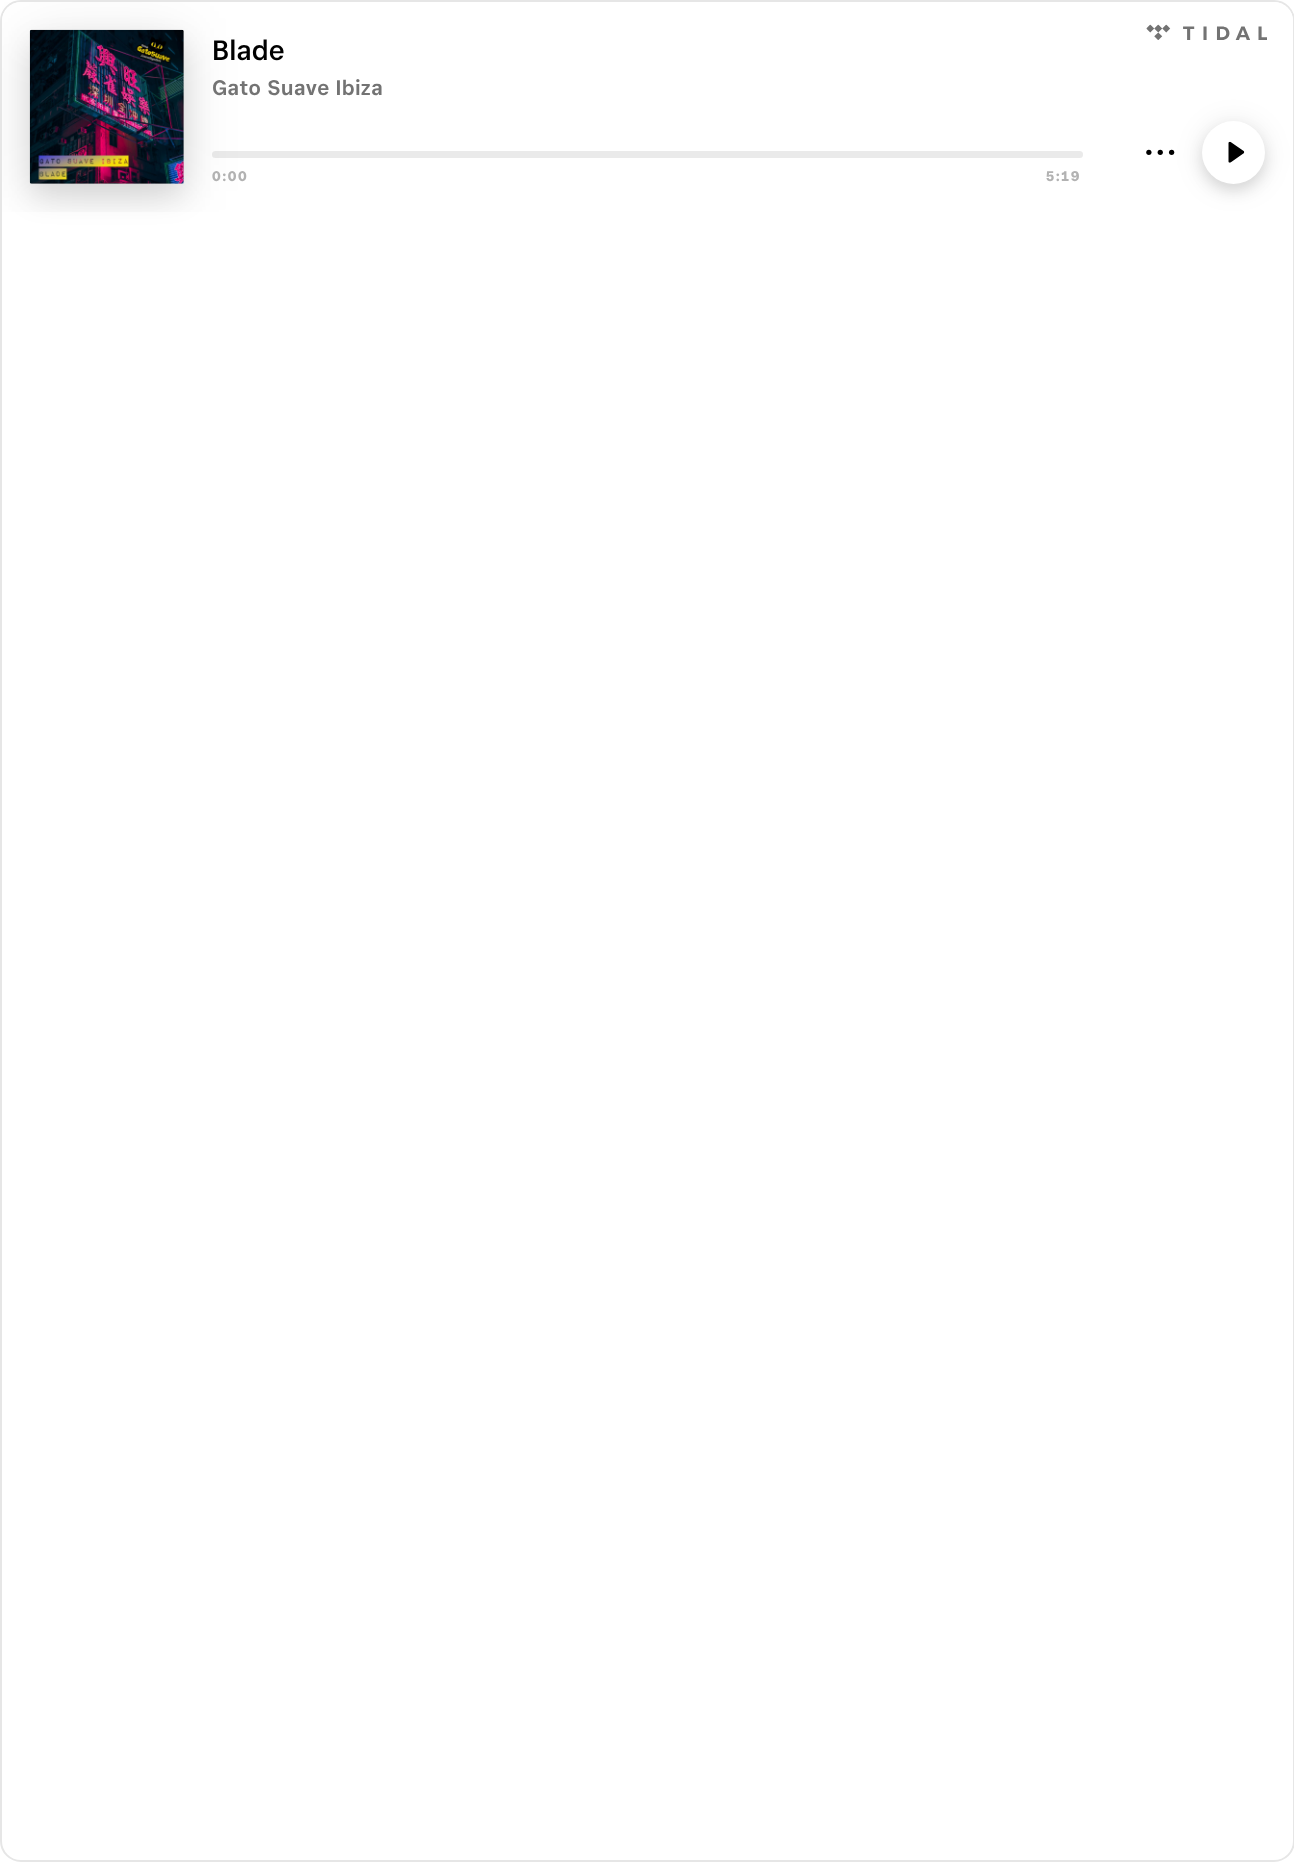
<svg xmlns="http://www.w3.org/2000/svg" width="1294" height="1862">
	<defs>
		<clipPath id="clip1"><rect x="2" y="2" width="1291" height="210" /></clipPath>
	</defs>
	<rect width="100%" height="100%" fill="#FFFFFF" />
	<rect x="1" y="1" width="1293" height="1860" rx="20" fill="none" stroke="#E6E6E6" stroke-width="2" />
	<path d="M21 2H1274C1284.5 2 1293 10.5 1293 21V212H2V21C2 10.5 10.5 2 21 2Z" fill="#FFFFFF" />
	<image x="1146" y="24" width="121" height="16" href="assets/img1.png" />
	<g clip-path="url(#clip1)">
		<rect x="30" y="37" width="154" height="154" rx="2" fill="#000000" fill-opacity="0.1" filter="blur(28px)" />
	</g>
	<rect x="30" y="44" width="154" height="154" rx="2" fill="#000000" fill-opacity="0.1" filter="blur(14px)" />
	<image x="29" y="29" width="155" height="155" href="assets/img2.png" />
	<rect x="31" y="31" width="152" height="152" fill="none" stroke="#000000" stroke-opacity="0.08" stroke-width="2" />
	<text x="212" y="60" font-family="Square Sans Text" font-size="28" font-weight="500" fill="#000000">Blade</text>
	<text x="212" y="95" font-family="Square Sans Text" font-size="21" font-weight="600" letter-spacing="0.3" fill="#737373">Gato Suave Ibiza</text>
	<rect x="1202" y="124" width="63" height="63" rx="31.5" fill="#000000" fill-opacity="0.1" filter="blur(14px)" />
	<rect x="1202" y="128" width="63" height="63" rx="31.5" fill="#000000" fill-opacity="0.1" filter="blur(7px)" />
	<circle cx="1233.5" cy="152.5" r="31.5" fill="#FFFFFF" />
	<image x="1228" y="141" width="17" height="22" href="assets/img3.png" />
	<image x="1146" y="149" width="29" height="6" href="assets/img4.png" />
	<rect x="212" y="151" width="871" height="7" rx="3.5" fill="#000000" fill-opacity="0.1" />
	<rect x="212" y="151" width="871" height="7" rx="3.5" fill="#FFFFFF" fill-opacity="0.2" />
	<text x="212" y="181" font-family="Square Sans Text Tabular" font-size="14" font-weight="700" letter-spacing="1.5" fill="#B2B2B2">0:00</text>
	<text x="1046" y="181" font-family="Square Sans Text" font-size="14" font-weight="700" letter-spacing="1.5" fill="#B2B2B2">5:19</text>
</svg>
